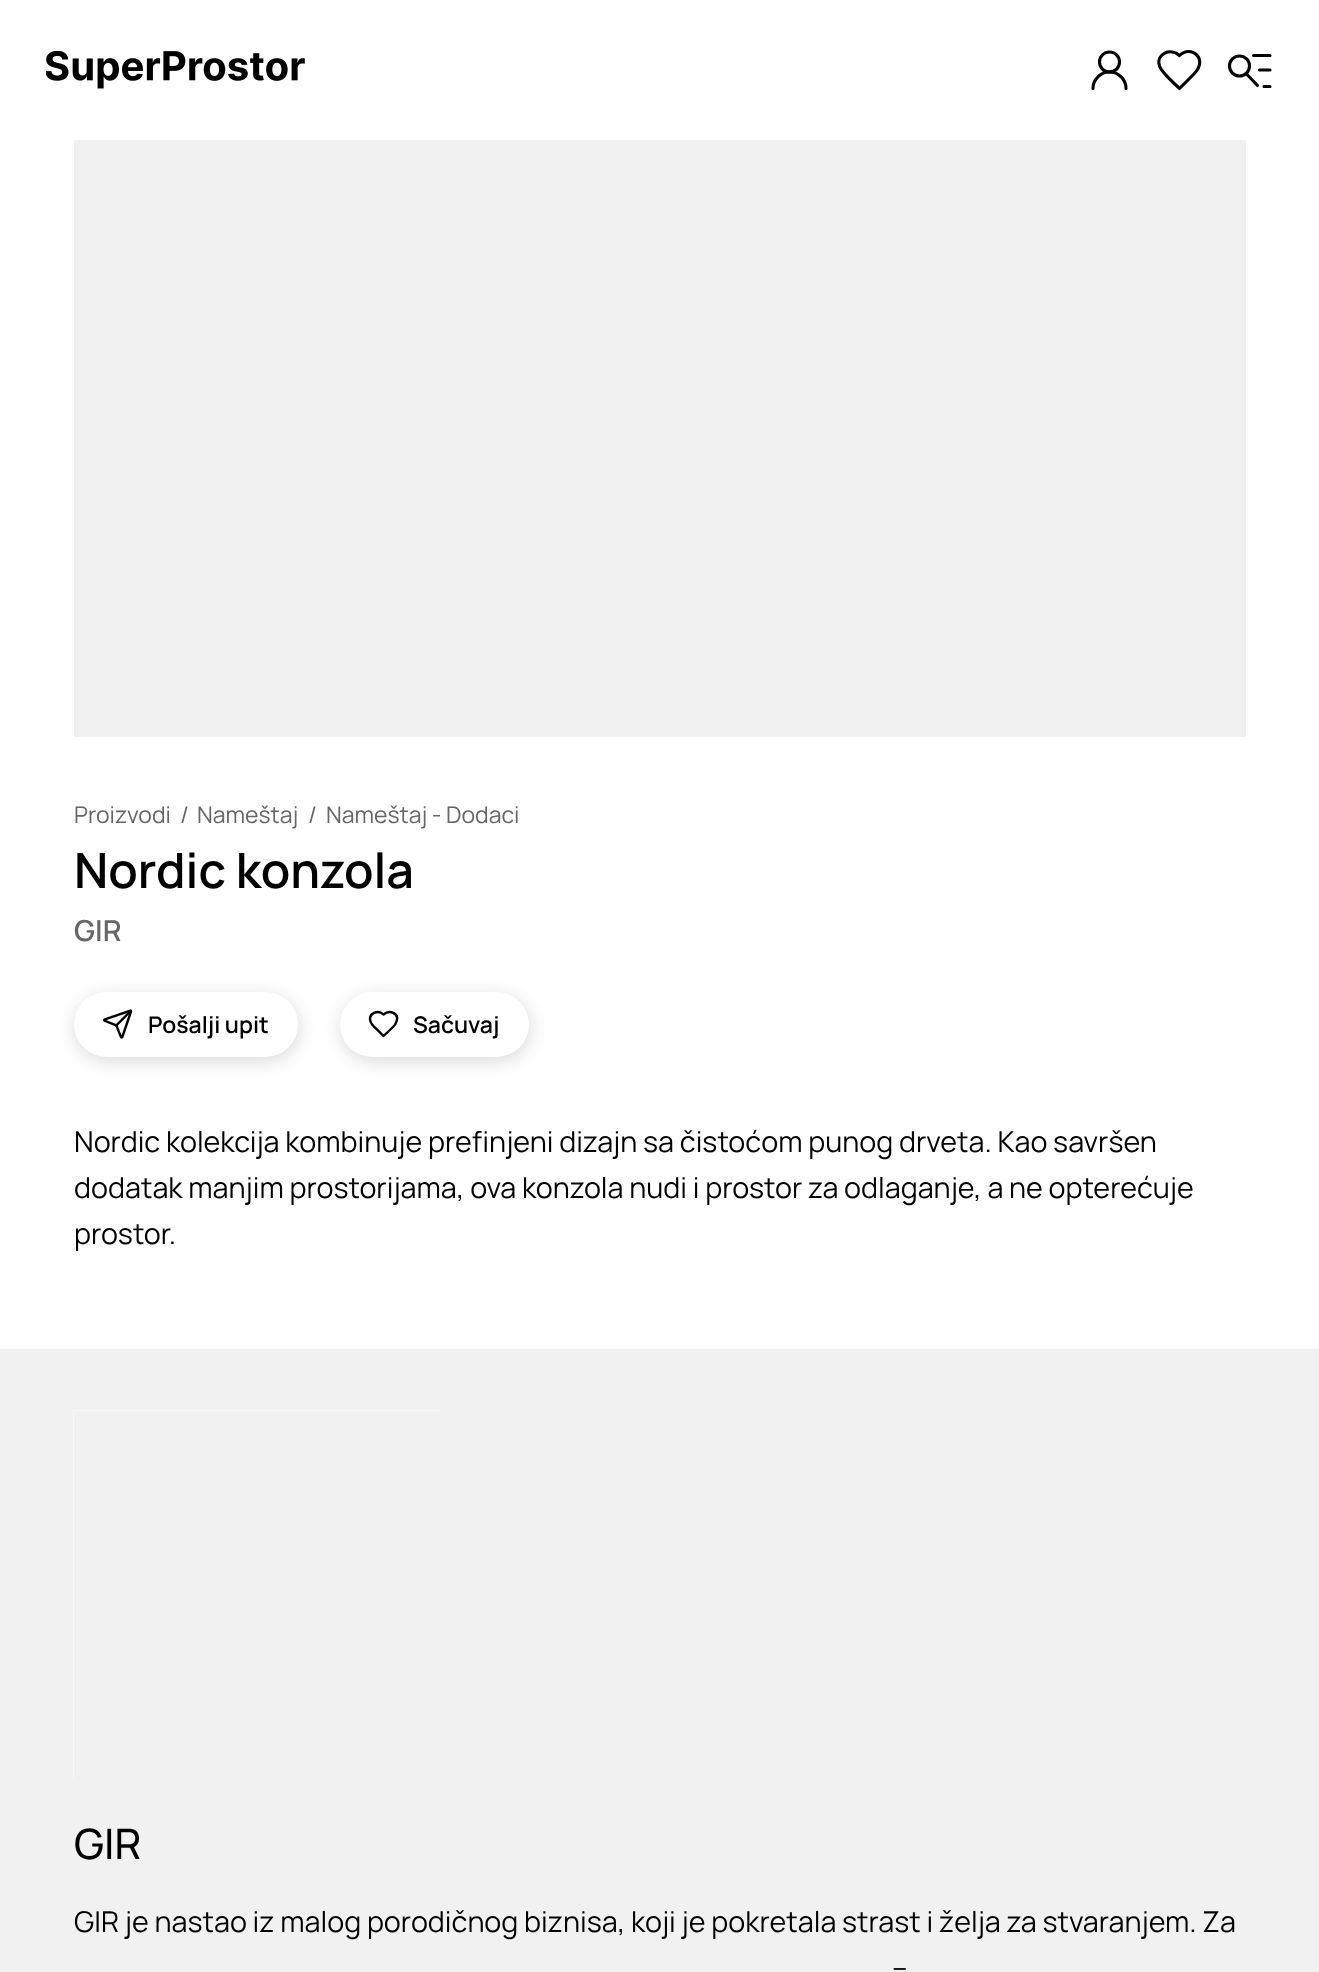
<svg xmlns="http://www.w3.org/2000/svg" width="1319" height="1972">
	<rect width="100%" height="100%" fill="#FFFFFF" />
	<image x="46" y="51" width="259" height="38" href="assets/img1.png" />
	<circle cx="1109.5" cy="62" r="10" fill="none" stroke="#000000" stroke-width="3.1" />
	<path d="M1126 88.5C1126 79.5 1118.5 72 1109.5 72C1100.5 72 1093 79.5 1093 88.5" fill="none" stroke="#000000" stroke-width="3.1" stroke-linecap="round" stroke-linejoin="round" />
	<path d="M1194 74C1209 59 1191 44 1179.5 55.5C1171 47.5 1155.5 53.5 1159.5 66C1161.5 72.5 1174.5 83.5 1179.5 88.5Z" fill="none" stroke="#000000" stroke-width="3.1" stroke-linecap="round" stroke-linejoin="round" />
	<circle cx="1239.5" cy="66" r="10" fill="none" stroke="#000000" stroke-width="3.1" />
	<path d="M1253.5 55.5H1270M1259.5 70H1270M1264 86.5H1270M1246.5 74L1257.5 85.5" fill="none" stroke="#000000" stroke-width="3.1" stroke-linecap="round" stroke-linejoin="round" />
	<rect x="74" y="140" width="1172" height="597" fill="#F1F1F1" />
	<g font-family="Manrope" font-size="23" fill="#666666">
		<text x="74" y="823">Proizvodi</text>
		<text x="180" y="823">/</text>
		<text x="197" y="823">Nameštaj</text>
		<text x="308" y="823">/</text>
		<text x="326" y="823">Nameštaj - Dodaci</text>
	</g>
	<text x="74" y="888" font-family="Manrope" font-size="48.5" font-weight="600" fill="#000000">Nordic konzola</text>
	<text x="74" y="941" font-family="Manrope" font-size="29" font-weight="600" fill="#666666">GIR</text>
	<rect x="75" y="996" width="224" height="65" rx="32.5" fill="#000000" fill-opacity="0.15" filter="blur(9px)" />
	<rect x="74" y="992" width="224" height="65" rx="32.5" fill="#FFFFFF" />
	<image x="103" y="1009" width="30" height="30" href="assets/img2.png" />
	<text x="148" y="1033" font-family="Manrope" font-size="23" font-weight="600" fill="#000000">Pošalji upit</text>
	<rect x="341" y="996" width="189" height="65" rx="32.5" fill="#000000" fill-opacity="0.15" filter="blur(9px)" />
	<rect x="340" y="992" width="189" height="65" rx="32.5" fill="#FFFFFF" />
	<path d="M393 1027C394.5 1025.5 396 1023.5 396.5 1021.5C399.5 1013.5 389.5 1009 383.5 1014.5C378 1009 368 1013.5 370.5 1021.5C371.5 1025 375 1027.5 377.5 1030L383.5 1036Z" fill="none" stroke="#000000" stroke-width="2.4" stroke-linecap="round" stroke-linejoin="round" />
	<text x="413" y="1033" font-family="Manrope" font-size="23" font-weight="600" fill="#000000">Sačuvaj</text>
	<g font-family="Manrope" font-size="28.7" fill="#000000">
		<text x="74" y="1152">Nordic kolekcija kombinuje prefinjeni dizajn sa čistoćom punog drveta. Kao savršen</text>
		<text x="74" y="1198">dodatak manjim prostorijama, ova konzola nudi i prostor za odlaganje, a ne opterećuje</text>
		<text x="74" y="1244">prostor.</text>
	</g>
	<rect x="0" y="1349" width="1319" height="623" fill="#F1F1F1" />
	<image x="73" y="1410" width="368" height="368" href="assets/img3.png" />
	<rect x="74" y="1411" width="367" height="367" fill="#F1F1F1" />
	<text x="74" y="1859" font-family="Manrope" font-size="42" font-weight="500" fill="#000000">GIR</text>
	<g font-family="Manrope" font-size="28.7" fill="#000000">
		<text x="74" y="1932">GIR je nastao iz malog porodičnog biznisa, koji je pokretala strast i želja za stvaranjem. Za</text>
		<text x="892" y="1978">–</text>
	</g>
</svg>
